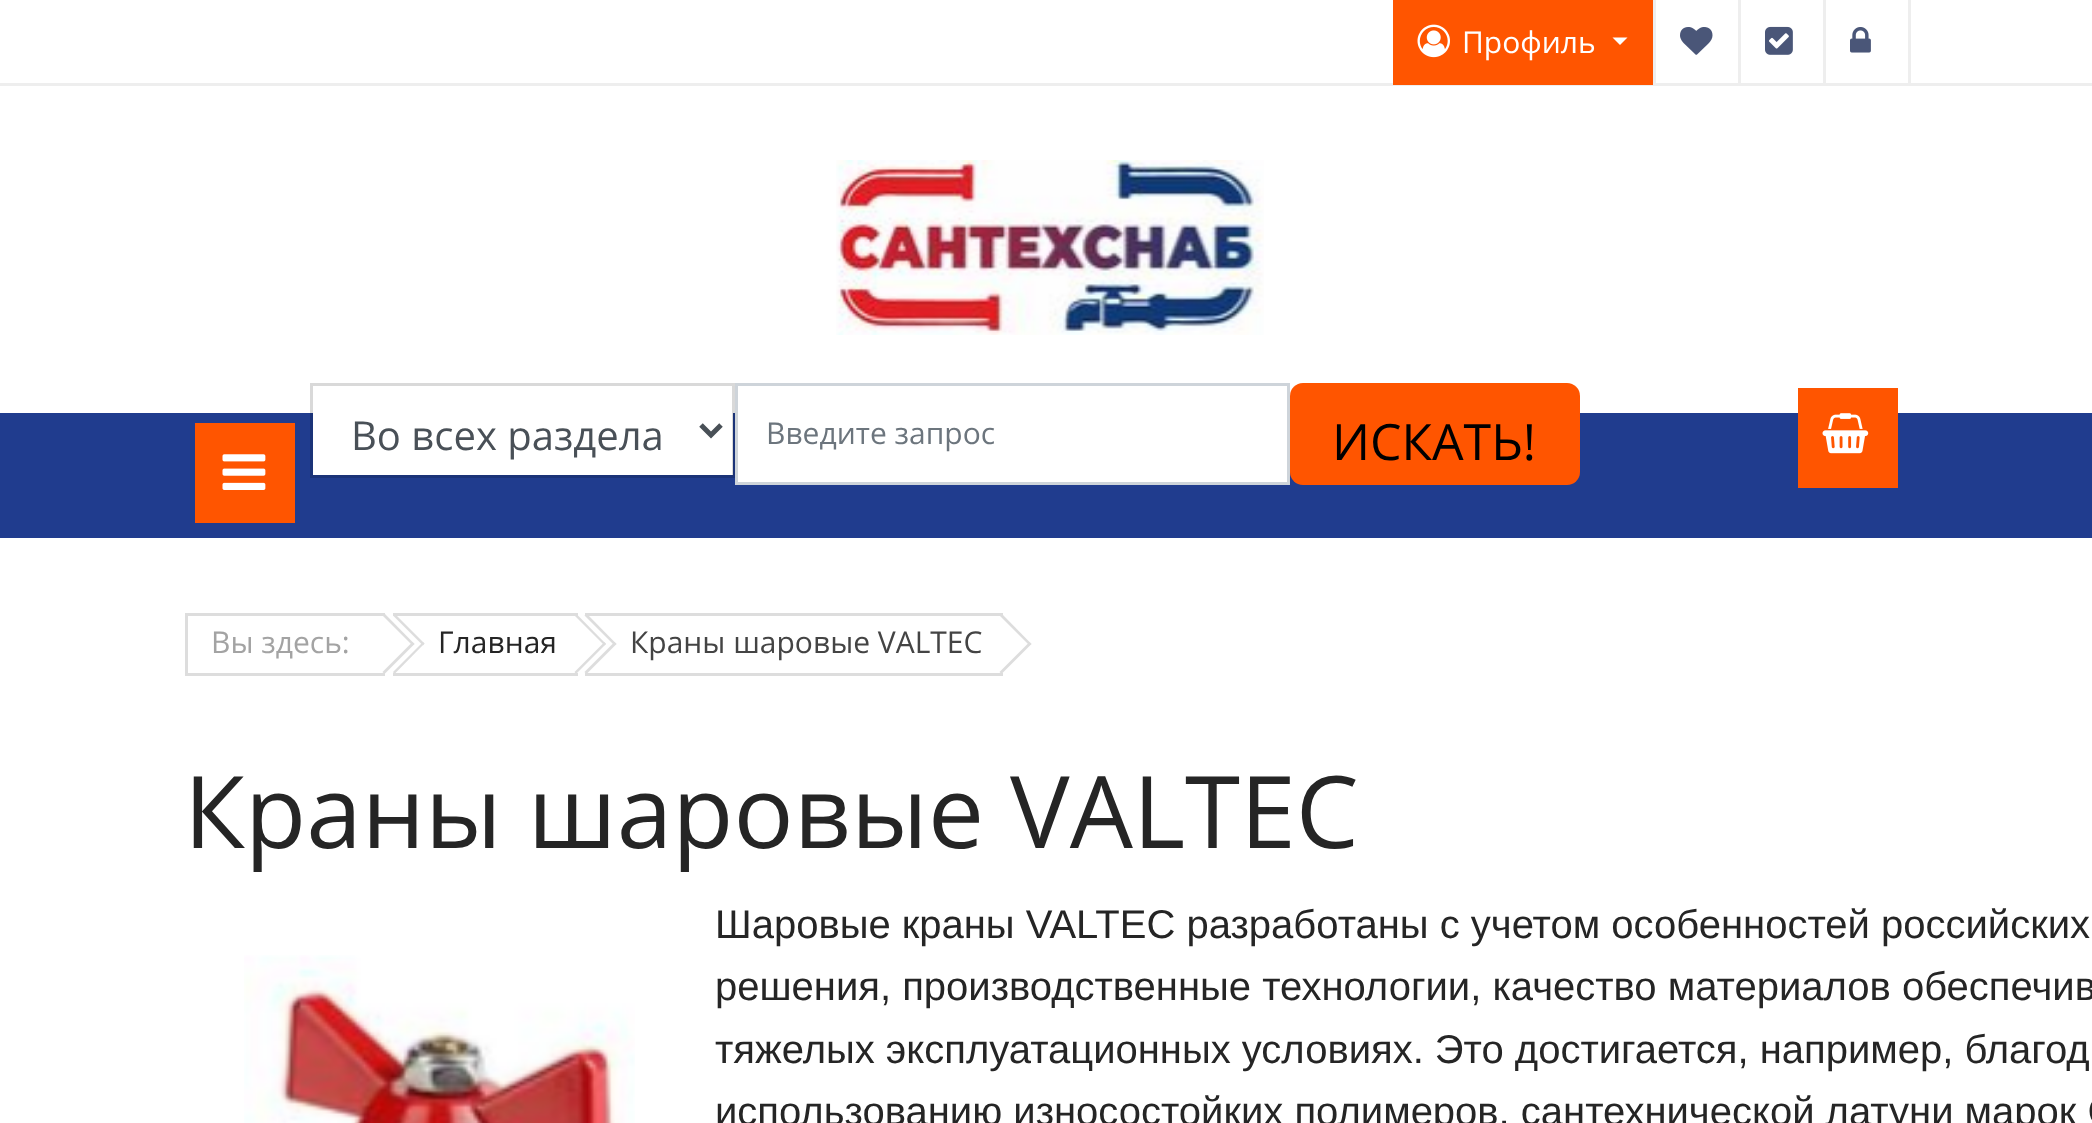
<svg xmlns="http://www.w3.org/2000/svg" width="2092" height="1123">
	<rect width="100%" height="100%" fill="#FFFFFF" />
	<rect x="0" y="83" width="2092" height="3" fill="#EEEEEE" />
	<rect x="1393" y="0" width="260" height="85" fill="#FF5500" />
	<rect x="1653" y="0" width="3" height="85" fill="#EEEEEE" />
	<image x="1417" y="24" width="33" height="34" href="assets/img1.png" />
	<text x="1462" y="53" font-family="Open Sans" font-size="30" fill="#FFFFFF">Профиль</text>
	<path d="M1612.5 37.5H1627.5L1620 45Z" fill="#FFFFFF" />
	<rect x="1738" y="0" width="3" height="85" fill="#EEEEEE" />
	<image x="1680" y="27" width="33" height="28" href="assets/img2.png" />
	<rect x="1823" y="0" width="3" height="85" fill="#EEEEEE" />
	<image x="1765" y="26" width="28" height="29" href="assets/img3.png" />
	<rect x="1908" y="0" width="3" height="85" fill="#EEEEEE" />
	<image x="1850" y="27" width="21" height="26" href="assets/img4.png" />
	<rect x="0" y="413" width="2092" height="125" fill="#203C8E" />
	<rect x="195" y="423" width="100" height="100" fill="#FF5500" />
	<image x="222" y="454" width="44" height="36" href="assets/img5.png" />
	<image x="836" y="160" width="428" height="175" href="assets/img6.png" />
	<rect x="313" y="413" width="420" height="62" fill="#FFFFFF" />
	<rect x="311.5" y="384.5" width="422" height="92" fill="none" stroke="#000000" stroke-opacity="0.15" stroke-width="3" />
	<path d="M701 425L711 435L721 425" fill="none" stroke="#495057" stroke-width="5" />
	<text x="351" y="450" font-family="Open Sans" font-size="40" fill="#495057">Во всех раздела</text>
	<rect x="738" y="413" width="549" height="69" fill="#FFFFFF" />
	<rect x="736.5" y="384.5" width="552" height="99" fill="none" stroke="#CED4DA" stroke-width="3" />
	<text x="766" y="444" font-family="Open Sans" font-size="30" fill="#6C757D">Введите запрос</text>
	<rect x="1290" y="383" width="290" height="102" rx="13" fill="#FF5500" />
	<text x="1332" y="460" font-family="Open Sans" font-size="50" fill="#000000">ИСКАТЬ!</text>
	<rect x="1798" y="388" width="100" height="100" fill="#FF5500" />
	<image x="1822" y="413" width="47" height="41" href="assets/img7.png" />
	<rect x="185" y="613" width="200" height="3" fill="#DDDDDD" />
	<rect x="185" y="673" width="200" height="3" fill="#DDDDDD" />
	<rect x="185" y="613" width="3" height="62" fill="#DDDDDD" />
	<text x="211" y="653" font-family="Open Sans" font-size="30" fill="#A3A3A3">Вы здесь:</text>
	<path d="M384.5 613.5L414.5 644L412.5 645.5L382.5 615.5Z" fill="#DDDDDD" />
	<path d="M412.5 642L414.5 644L384.5 674L382.5 672Z" fill="#DDDDDD" />
	<rect x="393" y="613" width="185" height="3" fill="#DDDDDD" />
	<rect x="393" y="673" width="185" height="3" fill="#DDDDDD" />
	<path d="M394.5 613.5L424.5 643.5L423 645.5L393 615.5Z" fill="#DDDDDD" />
	<path d="M423 642L424.5 643.5L394.5 674L393 672Z" fill="#DDDDDD" />
	<text x="438" y="653" font-family="Open Sans" font-size="30" fill="#252525">Главная</text>
	<path d="M576 613.5L606 644L604.5 645.5L574.5 615.5Z" fill="#DDDDDD" />
	<path d="M604.5 642L606 644L576 674L574.5 672Z" fill="#DDDDDD" />
	<rect x="585" y="613" width="418" height="3" fill="#DDDDDD" />
	<rect x="585" y="673" width="418" height="3" fill="#DDDDDD" />
	<path d="M586.5 613.5L616.5 644L614.5 645.5L584.5 615.5Z" fill="#DDDDDD" />
	<path d="M614.5 642L616.5 644L586.5 674L584.5 672Z" fill="#DDDDDD" />
	<text x="630" y="653" font-family="Open Sans" font-size="30" fill="#444444">Краны шаровые VALTEC</text>
	<path d="M1001.5 613.5L1031.5 644L1029.5 645.5L999.5 615.5Z" fill="#DDDDDD" />
	<path d="M1029.5 642L1031.5 644L1001.5 674L999.5 672Z" fill="#DDDDDD" />
	<text x="184" y="848" font-family="Open Sans" font-size="100" fill="#252525">Краны шаровые VALTEC</text>
	<image x="244" y="955" width="391" height="168" href="assets/img8.png" />
	<g font-family="Liberation Sans" font-size="40" fill="#252525">
		<text x="715" y="938">Шаровые краны VALTEC разработаны с учетом особенностей российских</text>
		<text x="715" y="1000">решения, производственные технологии, качество материалов обеспечив</text>
		<text x="715" y="1063">тяжелых эксплуатационных условиях. Это достигается, например, благод</text>
		<text x="715" y="1125">использованию износостойких полимеров, сантехнической латуни марок C</text>
	</g>
</svg>
